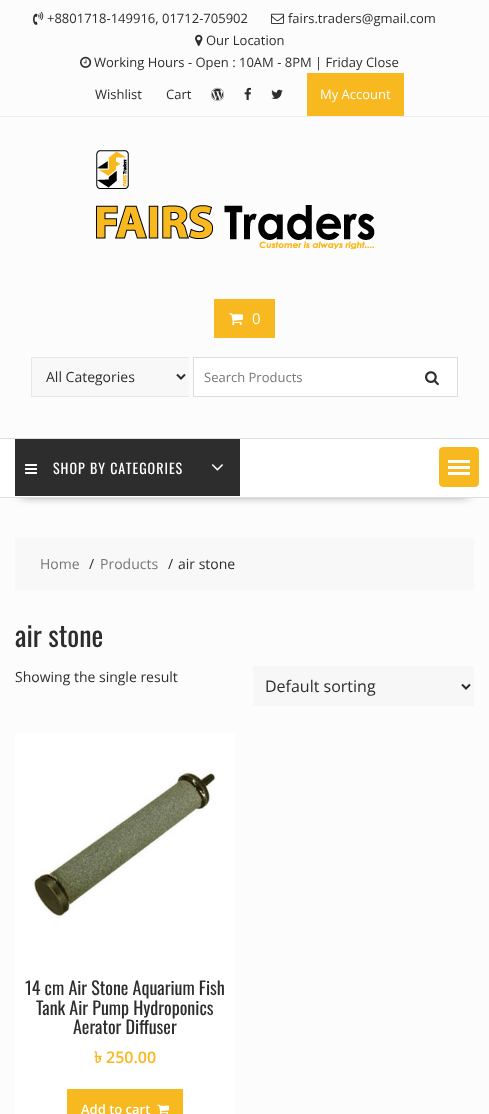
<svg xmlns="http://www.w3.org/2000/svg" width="489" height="1114">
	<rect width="100%" height="100%" fill="#FCFCFC" />
	<rect x="0" y="116" width="489" height="1" fill="#EEEEEE" />
	<image x="33" y="12" width="11" height="13" href="assets/img1.png" />
	<text x="47" y="23" font-family="Open Sans" font-size="13" fill="#2D2D2D">+8801718-149916, 01712-705902</text>
	<image x="271" y="13" width="13" height="11" href="assets/img2.png" />
	<text x="288" y="23" font-family="Open Sans" font-size="13" fill="#2D2D2D">fairs.traders@gmail.com</text>
	<image x="195" y="34" width="8" height="12" href="assets/img3.png" />
	<text x="206" y="45" font-family="Open Sans" font-size="13" fill="#2D2D2D">Our Location</text>
	<image x="80" y="56" width="12" height="12" href="assets/img4.png" />
	<g font-family="Open Sans" font-size="13" fill="#2D2D2D">
		<text x="94" y="67">Working Hours - Open : 10AM - 8PM | Friday Close</text>
		<text x="95" y="99">Wishlist</text>
		<text x="166" y="99">Cart</text>
	</g>
	<image x="211" y="87" width="13" height="14" href="assets/img5.png" />
	<image x="244" y="87" width="7" height="13" href="assets/img6.png" />
	<image x="271" y="89" width="12" height="10" href="assets/img7.png" />
	<rect x="307" y="73" width="97" height="43" fill="#F8B81F" />
	<text x="320" y="99" font-family="Open Sans" font-size="13" fill="#FFFFFF">My Account</text>
	<image x="96" y="150" width="279" height="99" href="assets/img8.png" />
	<rect x="214" y="299" width="61" height="39" fill="#F8B81F" />
	<image x="229" y="313" width="14" height="13" href="assets/img9.png" />
	<text x="252" y="324" font-family="Open Sans" font-size="15" fill="#FFFFFF">0</text>
	<rect x="32" y="358" width="157" height="38" fill="#F8F8F8" />
	<rect x="31" y="357" width="158" height="1" fill="#E7E7E7" />
	<rect x="31" y="396" width="158" height="1" fill="#E7E7E7" />
	<rect x="31" y="357" width="1" height="40" fill="#E7E7E7" />
	<path d="M177 374.5L181 378.5L185 374.5" fill="none" stroke="#2D2D2D" stroke-width="2" />
	<text x="46" y="382" font-family="Open Sans" font-size="14" fill="#2D2D2D">All Categories</text>
	<rect x="193.5" y="357.5" width="264" height="39" fill="#FFFFFF" stroke="#DDDDDD" />
	<text x="204" y="382" font-family="Open Sans" font-size="13" fill="#777777">Search Products</text>
	<image x="425" y="371" width="14" height="15" href="assets/img10.png" />
	<rect x="21" y="476" width="447" height="18" fill="#000000" fill-opacity="0.75" filter="blur(5.5px)" />
	<rect x="0" y="439" width="489" height="58" fill="#FFFFFF" />
	<rect x="0" y="438" width="489" height="1" fill="#DEDEDE" />
	<rect x="0" y="497" width="489" height="1" fill="#DEDEDE" />
	<rect x="15" y="439" width="225" height="57" fill="#2D2D2D" />
	<image x="25" y="464" width="12" height="10" href="assets/img11.png" />
	<text x="53" y="474" font-family="Oswald" font-size="14" letter-spacing="1" fill="#FFFFFF">SHOP BY CATEGORIES</text>
	<image x="211" y="464" width="12" height="7" href="assets/img12.png" />
	<rect x="439.5" y="447.5" width="39" height="39" rx="3.5" fill="#F8B81F" stroke="#F8B81F" />
	<rect x="448" y="472" width="22" height="3" fill="#FFFFFF" />
	<rect x="448" y="466" width="22" height="3" fill="#FFFFFF" />
	<rect x="448" y="460" width="22" height="3" fill="#FFFFFF" />
	<rect x="15" y="538" width="459" height="52" fill="#F8F8F8" />
	<text x="40" y="569" font-family="Open Sans" font-size="14" fill="#777777">Home</text>
	<text x="89" y="569" font-family="Open Sans" font-size="14" fill="#2D2D2D">/</text>
	<text x="100" y="569" font-family="Open Sans" font-size="14" fill="#777777">Products</text>
	<g font-family="Open Sans" font-size="14" fill="#2D2D2D">
		<text x="168" y="569">/</text>
		<text x="178" y="569">air stone</text>
	</g>
	<text x="15" y="647" font-family="Oswald" font-size="28" fill="#2D2D2D">air stone</text>
	<text x="15" y="682" font-family="Open Sans" font-size="14" fill="#2D2D2D">Showing the single result</text>
	<rect x="253" y="666" width="221" height="40" fill="#F7F7F7" />
	<path d="M462 684.5L466 688.5L470 684.5" fill="none" stroke="#2D2D2D" stroke-width="2" />
	<text x="265" y="692" font-family="Open Sans" font-size="16" fill="#2D2D2D">Default sorting</text>
	<rect x="15" y="734" width="220" height="380" fill="#FFFFFF" />
	<image x="33" y="769" width="184" height="149" href="assets/img13.png" />
	<g font-family="Oswald" font-size="18" fill="#2D2D2D">
		<text x="25" y="995">14 cm Air Stone Aquarium Fish</text>
		<text x="36" y="1015">Tank Air Pump Hydroponics</text>
		<text x="73" y="1034">Aerator Diffuser</text>
	</g>
	<text x="94" y="1063" font-family="Lohit Bengali" font-size="16" font-weight="700" fill="#F8B81F">৳</text>
	<text x="106" y="1063" font-family="Open Sans" font-size="16" font-weight="600" fill="#F8B81F">250.00</text>
	<rect x="67" y="1089" width="116" height="25" fill="#F8B81F" />
	<text x="81" y="1114" font-family="Open Sans" font-size="13" font-weight="600" fill="#FFFFFF">Add to cart</text>
	<image x="157" y="1104" width="13" height="10" href="assets/img14.png" />
</svg>
